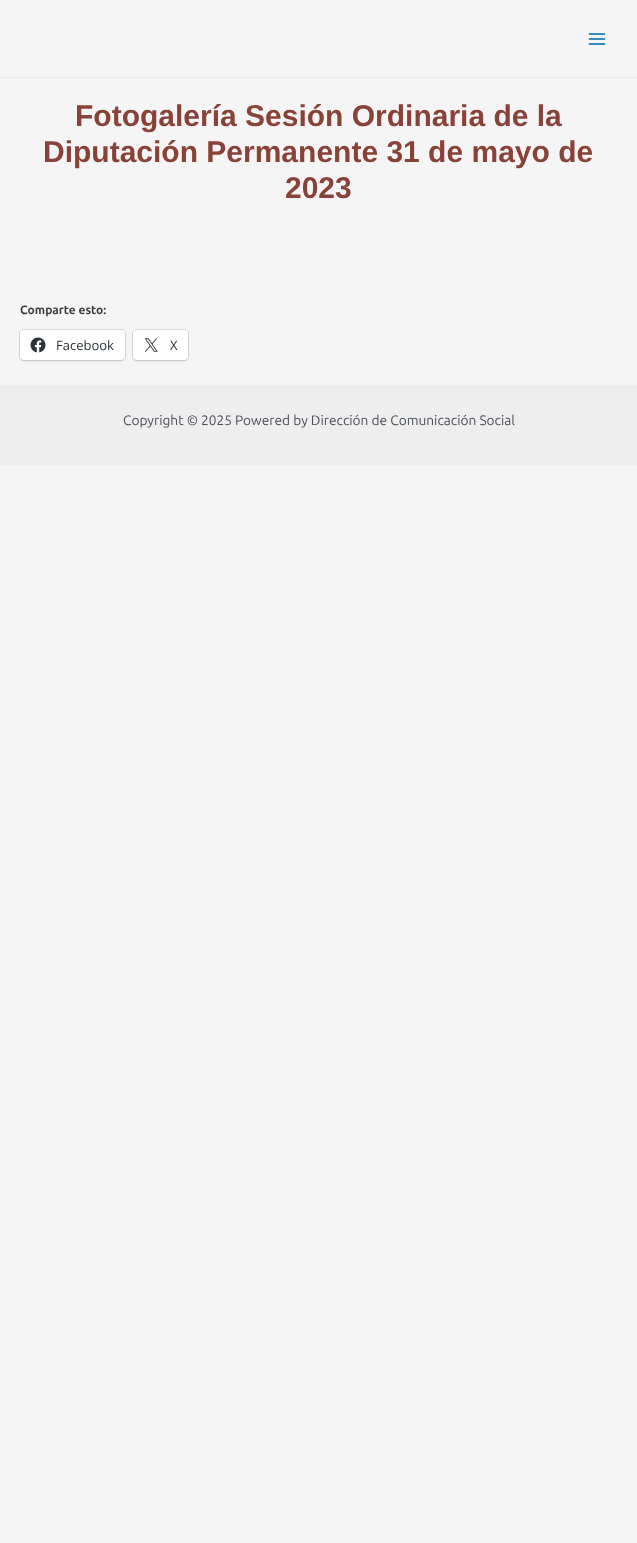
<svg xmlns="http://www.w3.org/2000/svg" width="637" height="1543">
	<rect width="100%" height="100%" fill="#F5F5F5" />
	<rect x="0" y="77" width="637" height="1" fill="#EAEAEA" />
	<image x="588" y="33" width="18" height="12" href="assets/img1.png" />
	<g font-family="Liberation Sans" font-size="30" font-weight="700" fill="#894237">
		<text x="75" y="126">Fotogalería Sesión Ordinaria de la</text>
		<text x="43" y="162">Diputación Permanente 31 de mayo de</text>
		<text x="285" y="198">2023</text>
	</g>
	<text x="20" y="314" font-family="Ubuntu" font-size="12" font-weight="700" fill="#3A3A3A">Comparte esto:</text>
	<rect x="19.5" y="329.5" width="106" height="31" rx="4.5" fill="none" stroke="#D8D8D8" />
	<rect x="20" y="331" width="105" height="30" rx="4" fill="#000000" fill-opacity="0.12" filter="blur(1px)" />
	<rect x="20" y="330" width="105" height="30" rx="4" fill="#FFFFFF" />
	<image x="30" y="337" width="16" height="16" href="assets/img2.png" />
	<text x="56" y="350" font-family="Open Sans" font-size="13" fill="#2C3338">Facebook</text>
	<rect x="132.5" y="329.5" width="56" height="31" rx="4.5" fill="none" stroke="#D8D8D8" />
	<rect x="133" y="331" width="55" height="30" rx="4" fill="#000000" fill-opacity="0.12" filter="blur(1px)" />
	<rect x="133" y="330" width="55" height="30" rx="4" fill="#FFFFFF" />
	<image x="144" y="338" width="14" height="14" href="assets/img3.png" />
	<text x="170" y="350" font-family="Open Sans" font-size="13" fill="#2C3338">X</text>
	<rect x="0" y="385" width="637" height="80" fill="#EEEEEE" />
	<text x="123" y="425" font-family="Ubuntu" font-size="13.7" fill="#4B4F58">Copyright © 2025 Powered by Dirección de Comunicación Social</text>
</svg>
